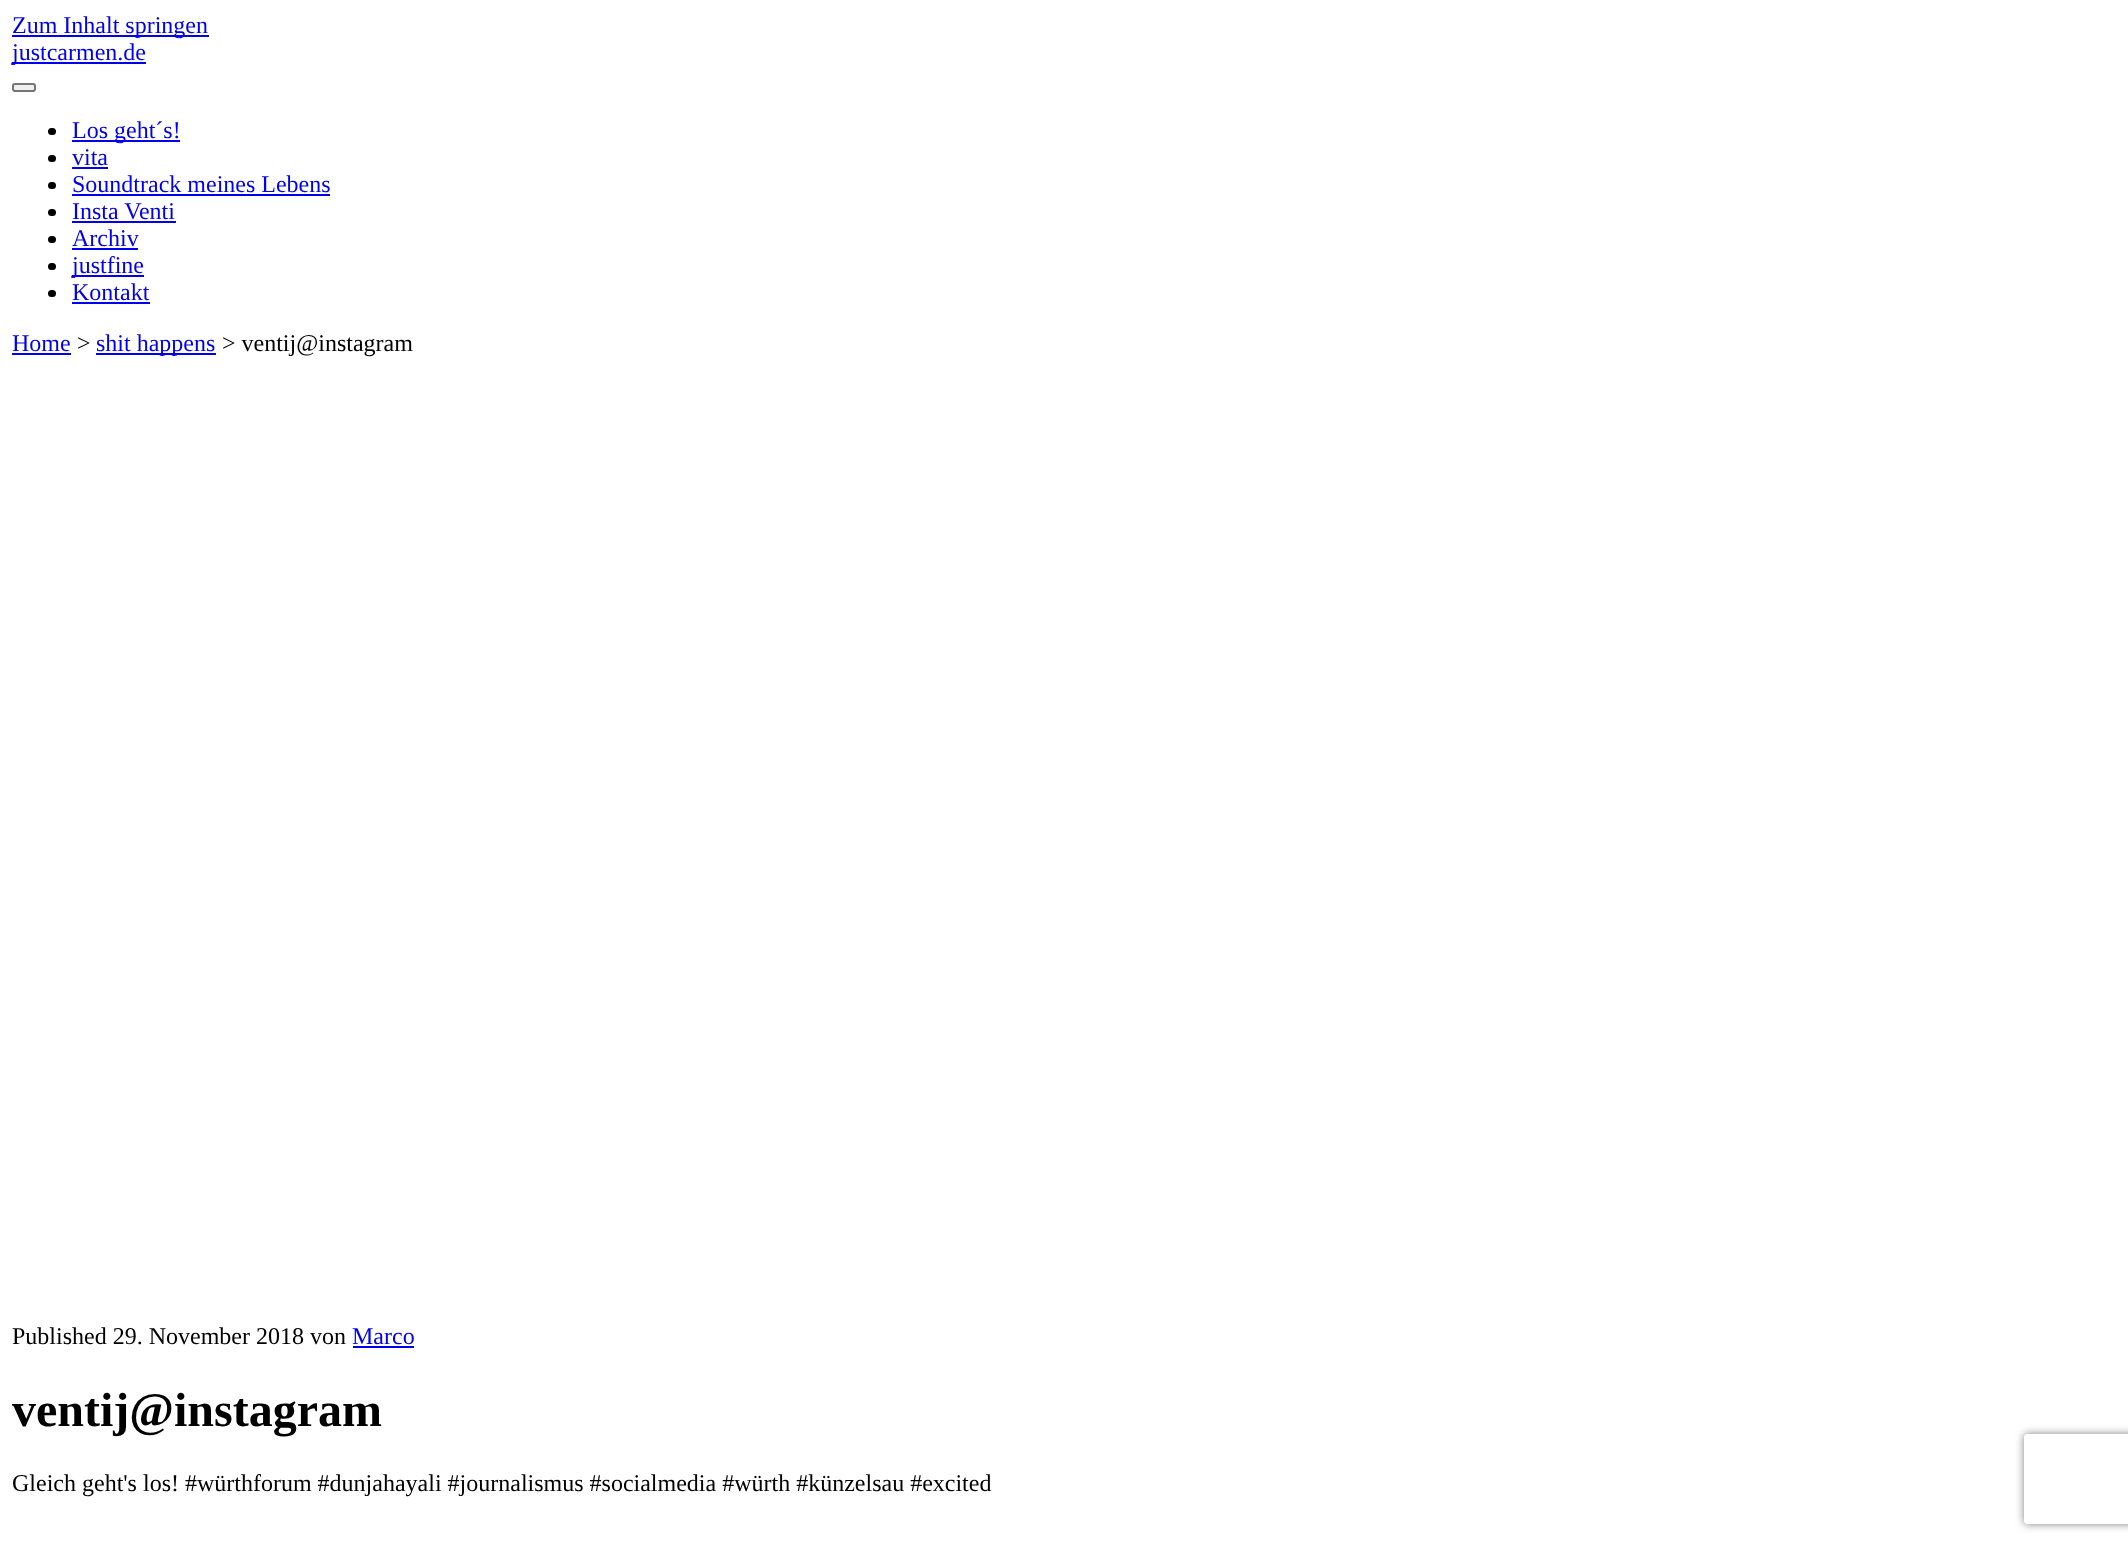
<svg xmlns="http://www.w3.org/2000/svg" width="2128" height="1544">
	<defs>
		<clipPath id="clip1"><path d="M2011 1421H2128V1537H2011ZM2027 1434H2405C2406.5 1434 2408 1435.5 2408 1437V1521C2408 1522.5 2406.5 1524 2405 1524H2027C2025.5 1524 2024 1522.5 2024 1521V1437C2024 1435.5 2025.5 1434 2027 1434Z" clip-rule="evenodd" /></clipPath>
	</defs>
	<rect width="100%" height="100%" fill="#FFFFFF" />
	<rect x="12" y="35" width="197" height="2" fill="#0000EE" />
	<text x="12" y="33" font-family="Liberation Serif" font-size="24" fill="#0000EE">Zum Inhalt springen</text>
	<rect x="12" y="62" width="134" height="2" fill="#0000EE" />
	<text x="12" y="60" font-family="Liberation Serif" font-size="24" fill="#0000EE">justcarmen.de</text>
	<rect x="13" y="84" width="22" height="7" rx="2" fill="#EFEFEF" stroke="#767676" stroke-width="2" />
	<rect x="48" y="128" width="8" height="7" rx="3.5" fill="#000000" />
	<rect x="72" y="140" width="108" height="2" fill="#0000EE" />
	<text x="72" y="138" font-family="Liberation Serif" font-size="24" fill="#0000EE">Los geht´s!</text>
	<rect x="48" y="155" width="8" height="7" rx="3.5" fill="#000000" />
	<text x="72" y="165" font-family="Liberation Serif" font-size="24" fill="#0000EE">vita</text>
	<rect x="72" y="167" width="36" height="2" fill="#0000EE" />
	<rect x="48" y="182" width="8" height="7" rx="3.5" fill="#000000" />
	<text x="72" y="192" font-family="Liberation Serif" font-size="24" fill="#0000EE">Soundtrack meines Lebens</text>
	<rect x="72" y="194" width="258" height="2" fill="#0000EE" />
	<rect x="48" y="209" width="8" height="7" rx="3.5" fill="#000000" />
	<text x="72" y="219" font-family="Liberation Serif" font-size="24" fill="#0000EE">Insta Venti</text>
	<rect x="72" y="221" width="104" height="2" fill="#0000EE" />
	<rect x="48" y="236" width="8" height="7" rx="3.5" fill="#000000" />
	<text x="72" y="246" font-family="Liberation Serif" font-size="24" fill="#0000EE">Archiv</text>
	<rect x="72" y="248" width="66" height="2" fill="#0000EE" />
	<rect x="48" y="263" width="8" height="7" rx="3.5" fill="#000000" />
	<rect x="72" y="275" width="72" height="2" fill="#0000EE" />
	<text x="72" y="273" font-family="Liberation Serif" font-size="24" fill="#0000EE">justfine</text>
	<rect x="48" y="290" width="8" height="7" rx="3.5" fill="#000000" />
	<text x="72" y="300" font-family="Liberation Serif" font-size="24" fill="#0000EE">Kontakt</text>
	<rect x="72" y="302" width="78" height="2" fill="#0000EE" />
	<text x="12" y="351" font-family="Liberation Serif" font-size="24" fill="#0000EE">Home</text>
	<rect x="12" y="353" width="59" height="2" fill="#0000EE" />
	<text x="77" y="351" font-family="Liberation Serif" font-size="24" fill="#000000">&gt;</text>
	<rect x="96" y="353" width="120" height="2" fill="#0000EE" />
	<text x="96" y="351" font-family="Liberation Serif" font-size="24" fill="#0000EE">shit happens</text>
	<g font-family="Liberation Serif" font-size="24" fill="#000000">
		<text x="222" y="351">&gt; ventij@instagram</text>
		<text x="12" y="1344">Published 29. November 2018 von</text>
	</g>
	<text x="352" y="1344" font-family="Liberation Serif" font-size="24" fill="#0000EE">Marco</text>
	<rect x="353" y="1346" width="61" height="2" fill="#0000EE" />
	<text x="12" y="1426" font-family="Liberation Serif" font-size="48" font-weight="700" fill="#000000">ventij@instagram</text>
	<text x="12" y="1491" font-family="Liberation Serif" font-size="24" fill="#000000">Gleich geht's los! #würthforum #dunjahayali #journalismus #socialmedia #würth #künzelsau #excited</text>
	<g clip-path="url(#clip1)">
		<rect x="2024" y="1434" width="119" height="90" rx="3" fill="#808080" filter="blur(4px)" />
	</g>
</svg>
